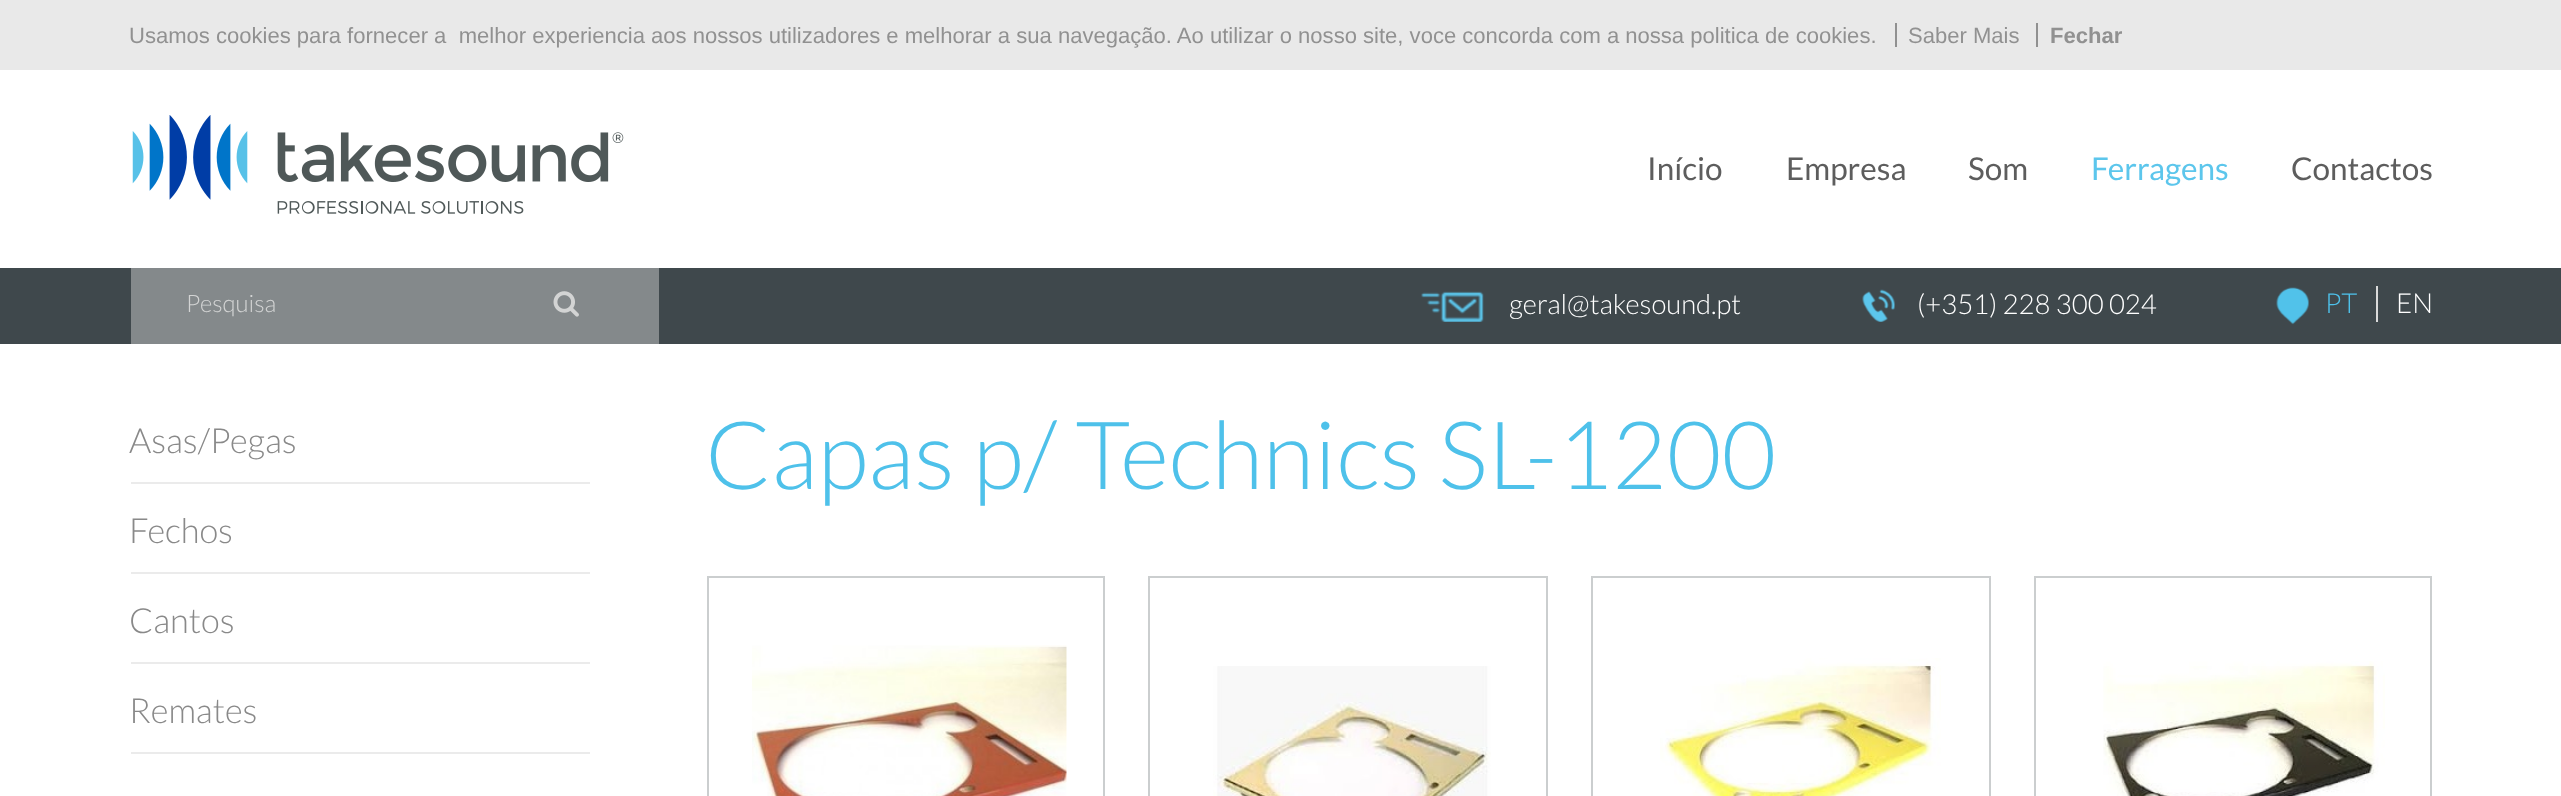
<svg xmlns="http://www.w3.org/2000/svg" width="2561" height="796">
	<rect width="100%" height="100%" fill="#FFFFFF" />
	<rect x="0" y="0" width="2561" height="70" fill="#E9E9E9" />
	<g font-family="Liberation Sans" font-size="22.05" fill="#919191">
		<text x="129" y="43" xml:space="preserve">Usamos cookies para fornecer a  melhor experiencia aos nossos utilizadores e melhorar a sua navegação. Ao utilizar o nosso site, voce concorda com a nossa politica de cookies.</text>
		<text x="1908" y="43">Saber Mais</text>
	</g>
	<rect x="1895" y="23" width="2" height="24" fill="#919191" />
	<text x="2050" y="43" font-family="Liberation Sans" font-size="22.05" font-weight="700" fill="#919191">Fechar</text>
	<rect x="2036" y="23" width="2" height="24" fill="#919191" />
	<image x="132" y="115" width="492" height="99" href="assets/img1.png" />
	<g font-family="Lato" font-size="31.5" fill="#5D5D5D">
		<text x="1647" y="180">Início</text>
		<text x="1786" y="180">Empresa</text>
		<text x="1968" y="180">Som</text>
	</g>
	<text x="2091" y="180" font-family="Lato" font-size="31.5" fill="#5CC6EC">Ferragens</text>
	<text x="2291" y="180" font-family="Lato" font-size="31.5" fill="#5D5D5D">Contactos</text>
	<rect x="0" y="268" width="2561" height="76" fill="#3F484C" />
	<rect x="131" y="268" width="528" height="76" fill="#84898B" />
	<text x="186" y="312" font-family="Lato" font-size="24" font-weight="300" fill="#D3D4D4">Pesquisa</text>
	<image x="553" y="291" width="26" height="26" href="assets/img2.png" />
	<image x="1421" y="291" width="63" height="31" href="assets/img3.png" />
	<text x="1509" y="314" font-family="Lato" font-size="27.5" font-weight="300" fill="#FFFFFF">geral@takesound.pt</text>
	<image x="1862" y="289" width="33" height="33" href="assets/img4.png" />
	<text x="1917" y="314" font-family="Lato" font-size="27.5" font-weight="300" fill="#FFFFFF">(+351) 228 300 024</text>
	<image x="2276" y="287" width="33" height="38" href="assets/img5.png" />
	<rect x="2376" y="286" width="2" height="36" fill="#DADADA" />
	<text x="2325" y="313" font-family="Lato" font-size="27.5" font-weight="300" fill="#4EC1EA">PT</text>
	<text x="2396" y="313" font-family="Lato" font-size="27.5" font-weight="300" fill="#FFFFFF">EN</text>
	<rect x="131" y="482" width="459" height="2" fill="#EBEBEB" />
	<text x="129" y="453" font-family="Lato" font-size="34.5" font-weight="300" fill="#898989">Asas/Pegas</text>
	<rect x="131" y="572" width="459" height="2" fill="#EBEBEB" />
	<text x="129" y="543" font-family="Lato" font-size="34.5" font-weight="300" fill="#898989">Fechos</text>
	<rect x="131" y="662" width="459" height="2" fill="#EBEBEB" />
	<text x="129" y="633" font-family="Lato" font-size="34.5" font-weight="300" fill="#898989">Cantos</text>
	<rect x="131" y="752" width="459" height="2" fill="#EBEBEB" />
	<text x="129" y="723" font-family="Lato" font-size="34.5" font-weight="300" fill="#898989">Remates</text>
	<text x="705" y="489" font-family="Lato" font-size="94.5" font-weight="300" fill="#4EC1EA">Capas p/ Technics SL-1200</text>
	<rect x="708" y="577" width="396" height="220" fill="none" stroke="#CBCECF" stroke-width="2" />
	<image x="752" y="645" width="315" height="151" href="assets/img6.png" />
	<rect x="1149" y="577" width="398" height="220" fill="none" stroke="#CBCECF" stroke-width="2" />
	<image x="1213" y="666" width="278" height="130" href="assets/img7.png" />
	<rect x="1592" y="577" width="398" height="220" fill="none" stroke="#CBCECF" stroke-width="2" />
	<image x="1660" y="658" width="281" height="138" href="assets/img8.png" />
	<rect x="2035" y="577" width="396" height="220" fill="none" stroke="#CBCECF" stroke-width="2" />
	<image x="2103" y="661" width="282" height="135" href="assets/img9.png" />
</svg>
